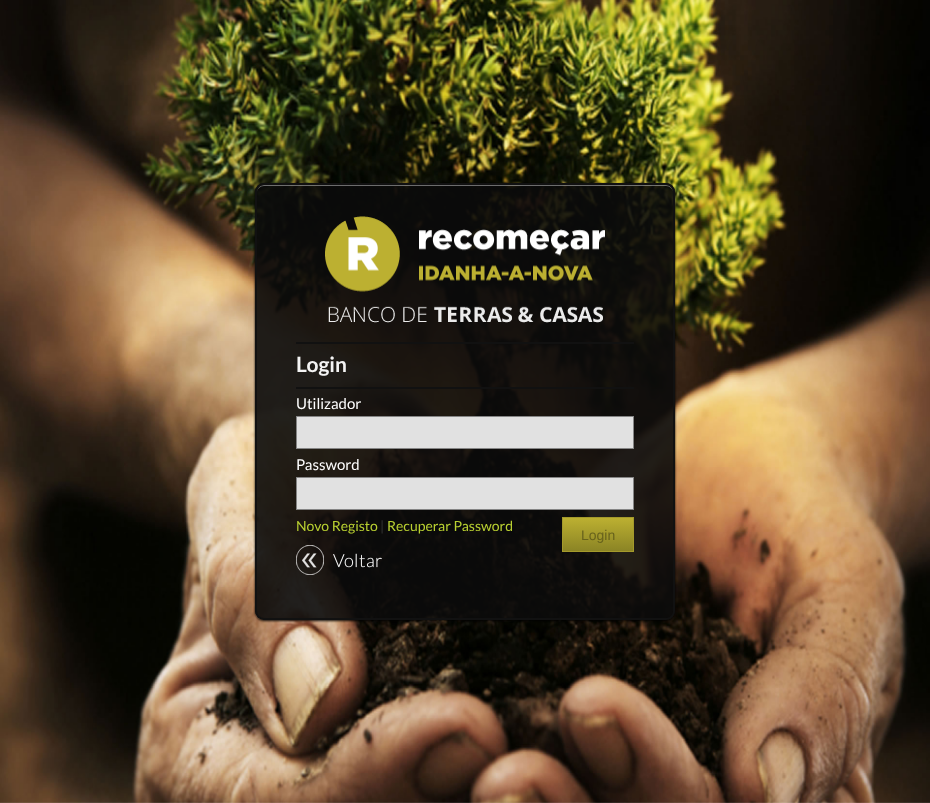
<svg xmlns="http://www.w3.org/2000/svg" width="930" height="803">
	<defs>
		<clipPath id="clip1"><path d="M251 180H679V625H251ZM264 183H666C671 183 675 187 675 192V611C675 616 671 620 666 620H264C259 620 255 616 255 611V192C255 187 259 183 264 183Z" clip-rule="evenodd" /></clipPath>
		<linearGradient id="g1" gradientUnits="userSpaceOnUse" x1="598" y1="518" x2="598" y2="551"><stop offset="0" stop-color="#BCB031" /><stop offset="1" stop-color="#8B8425" /></linearGradient>
	</defs>
	<rect width="100%" height="100%" fill="#FFFFFF" />
	<image x="0" y="0" width="930" height="803" href="assets/img1.png" />
	<g clip-path="url(#clip1)">
		<rect x="255" y="184" width="420" height="437" rx="9" fill="#000000" fill-opacity="0.9" filter="blur(1px)" />
	</g>
	<rect x="255" y="183" width="420" height="437" rx="9" fill="#0B0B0B" fill-opacity="0.9" />
	<path d="M264 186H666C670 186 673 189 673 193C673 189 671 185 666 185H264C259 185 257 189 257 193C257 189 260 186 264 186Z" fill="#FFFFFF" fill-opacity="0.4" />
	<rect x="256" y="184" width="418" height="435" rx="8" fill="none" stroke="#111111" stroke-width="2" />
	<rect x="296" y="342" width="338" height="2" fill="#111111" />
	<image x="325" y="216" width="280" height="107" href="assets/img2.png" />
	<rect x="296" y="387" width="338" height="2" fill="#111111" />
	<text x="296" y="372" font-family="Lato" font-size="21" font-weight="700" fill="#F4F4F4">Login</text>
	<text x="296" y="409" font-family="Lato" font-size="15" fill="#FFFFFF">Utilizador</text>
	<rect x="296.5" y="416.5" width="337" height="32" fill="#E1E1E1" stroke="#858585" />
	<text x="296" y="470" font-family="Lato" font-size="15" fill="#FFFFFF">Password</text>
	<rect x="296.5" y="477.5" width="337" height="32" fill="#E1E1E1" stroke="#858585" />
	<text x="296" y="531" font-family="Lato" font-size="14" fill="#B9D031">Novo Registo</text>
	<text x="380" y="531" font-family="Lato" font-size="14" fill="#333333">|</text>
	<text x="387" y="531" font-family="Lato" font-size="14" fill="#B9D031">Recuperar Password</text>
	<rect x="563" y="518" width="70" height="33" fill="url(#g1)" />
	<rect x="562.5" y="517.5" width="71" height="34" fill="none" stroke="#A49A2B" />
	<text x="581" y="540" font-family="Liberation Sans" font-size="14" fill="#68631C">Login</text>
	<image x="296" y="545" width="86" height="30" href="assets/img3.png" />
</svg>
